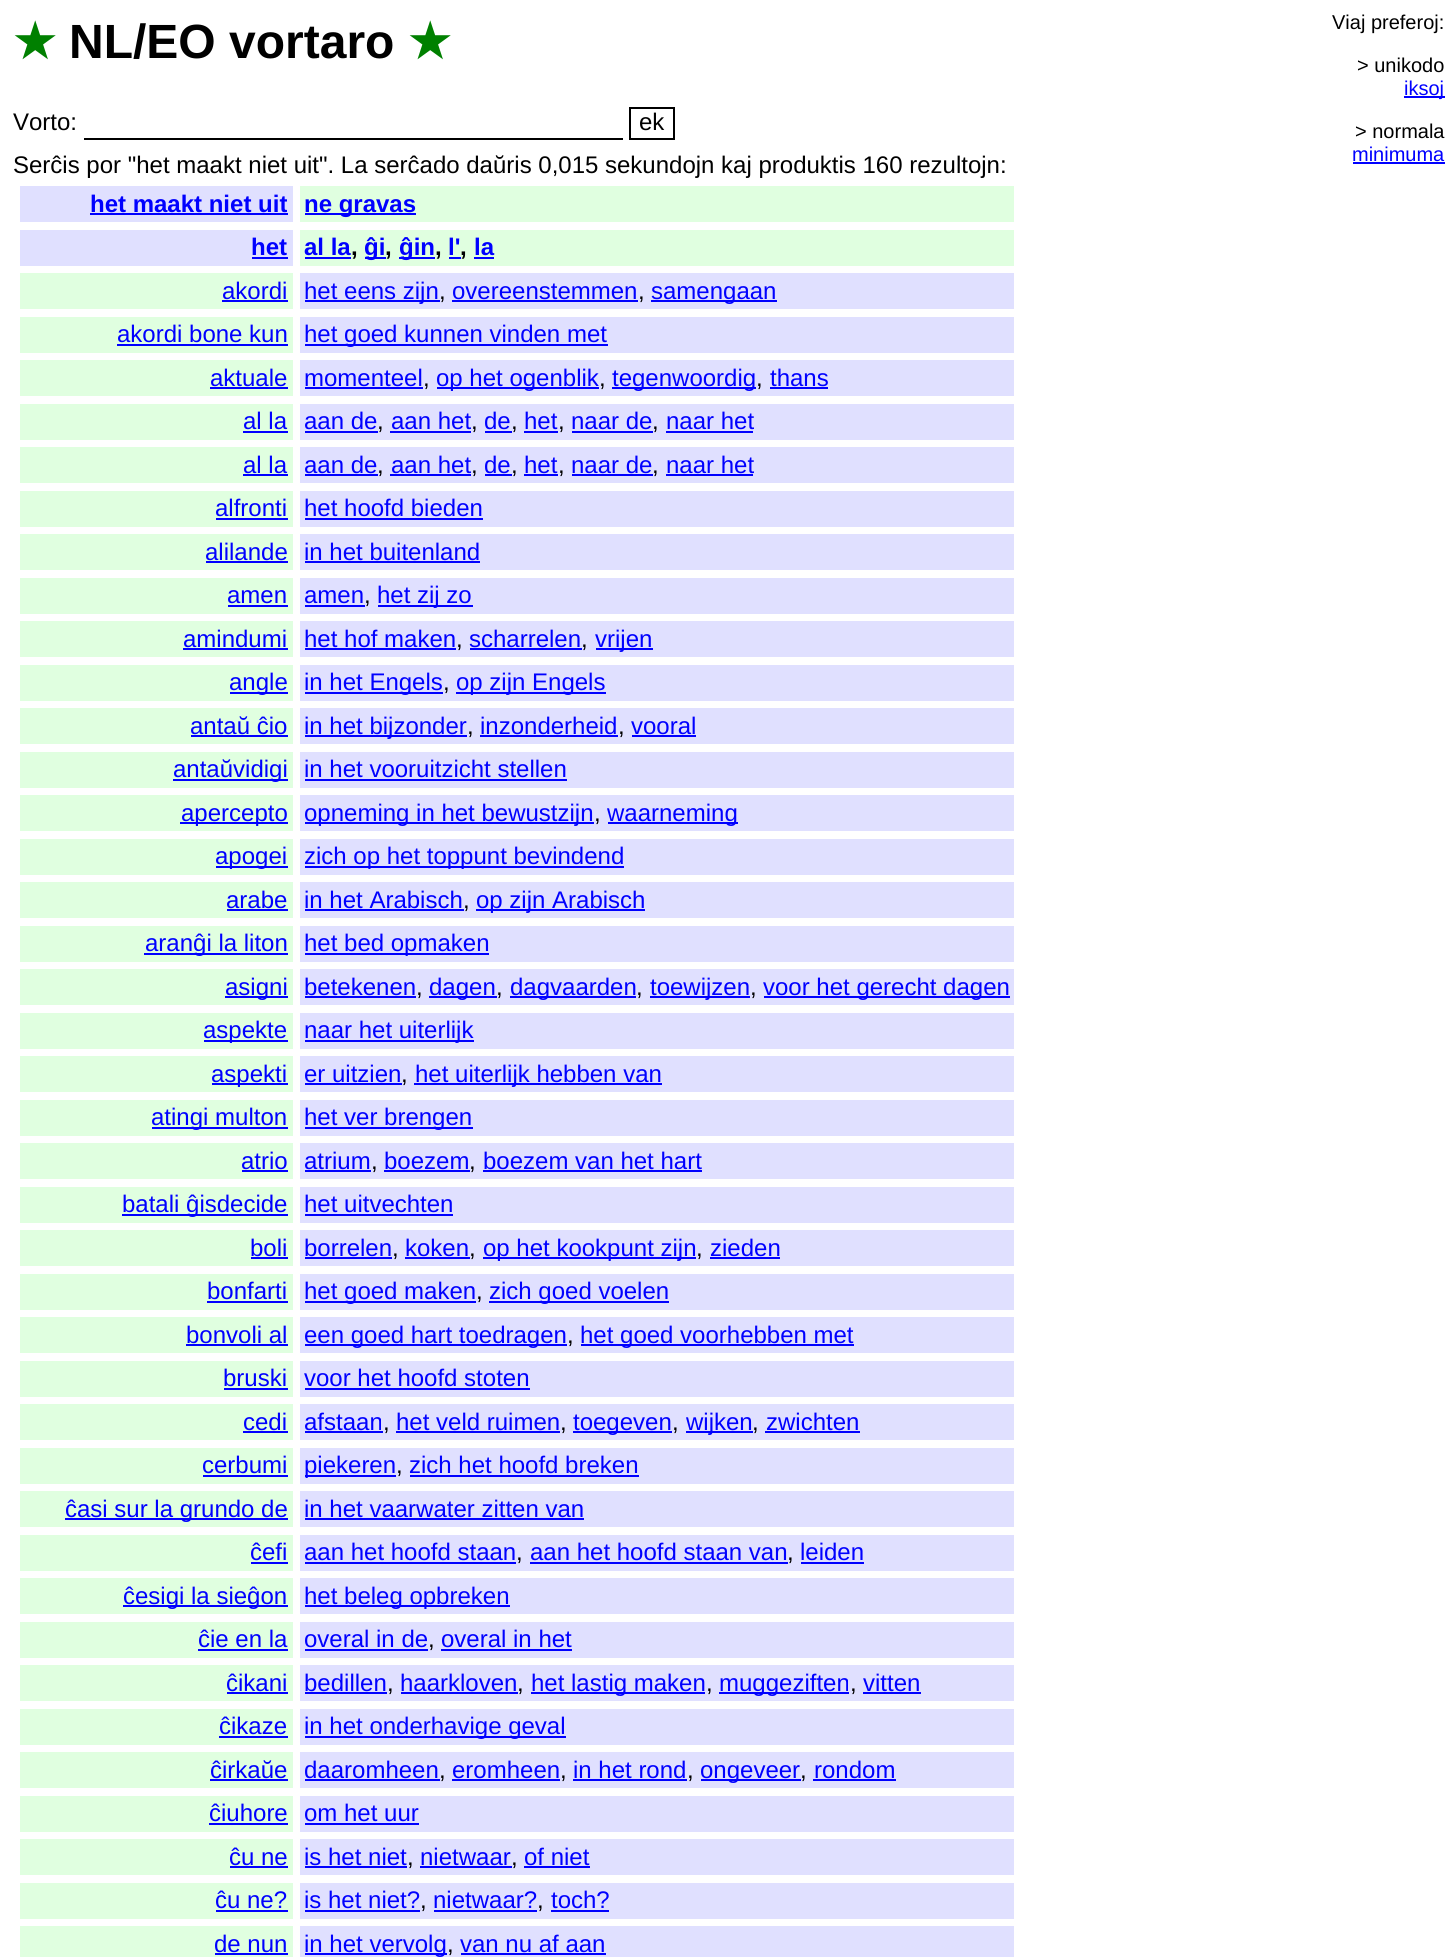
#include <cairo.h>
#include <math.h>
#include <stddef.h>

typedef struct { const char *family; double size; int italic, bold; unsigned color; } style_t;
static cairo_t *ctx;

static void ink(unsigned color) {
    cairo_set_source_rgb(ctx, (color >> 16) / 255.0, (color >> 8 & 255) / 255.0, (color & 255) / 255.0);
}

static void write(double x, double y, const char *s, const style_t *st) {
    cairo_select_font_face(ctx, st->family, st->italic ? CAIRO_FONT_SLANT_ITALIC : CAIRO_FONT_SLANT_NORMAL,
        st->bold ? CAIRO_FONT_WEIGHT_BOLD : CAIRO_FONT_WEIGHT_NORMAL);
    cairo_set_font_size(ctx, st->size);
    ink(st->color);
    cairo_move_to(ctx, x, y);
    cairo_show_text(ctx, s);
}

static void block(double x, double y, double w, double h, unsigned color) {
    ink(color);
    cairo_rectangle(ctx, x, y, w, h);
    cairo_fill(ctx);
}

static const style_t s1 = {"DejaVu Sans", 48, 0, 1, 0x008000};
static const style_t s2 = {"Liberation Sans", 48, 0, 1, 0x000000};
static const style_t s3 = {"Liberation Sans", 20, 0, 0, 0x000000};
static const style_t s4 = {"Liberation Sans", 20, 0, 0, 0x0000ff};
static const style_t s5 = {"Liberation Sans", 24, 0, 0, 0x000000};
static const style_t s6 = {"Liberation Sans", 24, 0, 1, 0x0000ff};
static const style_t s7 = {"Liberation Sans", 24, 0, 1, 0x000000};
static const style_t s8 = {"Liberation Sans", 24, 0, 0, 0x0000ff};

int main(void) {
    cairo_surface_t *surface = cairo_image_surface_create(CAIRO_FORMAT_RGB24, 1454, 1957);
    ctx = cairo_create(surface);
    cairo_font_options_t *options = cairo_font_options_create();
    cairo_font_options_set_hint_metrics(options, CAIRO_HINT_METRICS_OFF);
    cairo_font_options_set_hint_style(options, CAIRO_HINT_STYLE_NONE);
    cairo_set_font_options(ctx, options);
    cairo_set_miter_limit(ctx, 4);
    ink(0xffffff);
    cairo_paint(ctx);
    write(13, 58, "★", &s1);
    write(69, 58, "NL/EO vortaro", &s2);
    write(408, 58, "★", &s1);
    write(1332, 29, "Viaj preferoj:", &s3);
    write(1357, 72, "> unikodo", &s3);
    block(1404, 96, 41, 2, 0x0000ff);
    write(1404, 95, "iksoj", &s4);
    write(1355, 138, "> normala", &s3);
    write(1352, 161, "minimuma", &s4);
    block(1353, 162, 92, 2, 0x0000ff);
    write(13, 130, "Vorto:", &s5);
    cairo_rectangle(ctx, 630, 108, 44, 31);
    cairo_stroke(ctx);
    write(639, 130, "ek", &s5);
    block(84, 138, 539, 2, 0x000000);
    write(13, 173, "Serĉis por \"het maakt niet uit\". La serĉado daŭris 0,015 sekundojn kaj produktis 160 rezultojn:", &s5);
    block(20, 186, 273, 36, 0xe0e0ff);
    write(90, 212, "het maakt niet uit", &s6);
    block(90, 213, 198, 2, 0x0000ff);
    block(300, 186, 714, 36, 0xe0ffe0);
    block(305, 213, 111, 2, 0x0000ff);
    write(304, 212, "ne gravas", &s6);
    block(20, 230, 273, 36, 0xe0e0ff);
    write(251, 255, "het", &s6);
    block(252, 257, 36, 2, 0x0000ff);
    block(300, 230, 714, 36, 0xe0ffe0);
    write(304, 255, "al la", &s6);
    block(305, 257, 46, 2, 0x0000ff);
    write(351, 255, ",", &s7);
    block(365, 257, 21, 2, 0x0000ff);
    write(364, 255, "ĝi", &s6);
    write(385, 255, ",", &s7);
    block(399, 257, 36, 2, 0x0000ff);
    write(399, 255, "ĝin", &s6);
    write(435, 255, ",", &s7);
    write(448, 255, "l'", &s6);
    block(449, 257, 12, 2, 0x0000ff);
    write(460, 255, ",", &s7);
    write(474, 255, "la", &s6);
    block(474, 257, 20, 2, 0x0000ff);
    block(20, 273, 273, 36, 0xe0ffe0);
    write(222, 299, "akordi", &s8);
    block(222, 300, 66, 2, 0x0000ff);
    block(300, 273, 714, 36, 0xe0e0ff);
    block(305, 300, 135, 2, 0x0000ff);
    write(304, 299, "het eens zijn", &s8);
    write(439, 299, ",", &s5);
    write(452, 299, "overeenstemmen", &s8);
    block(452, 300, 186, 2, 0x0000ff);
    write(638, 299, ",", &s5);
    block(651, 300, 126, 2, 0x0000ff);
    write(651, 299, "samengaan", &s8);
    block(20, 317, 273, 36, 0xe0ffe0);
    write(117, 342, "akordi bone kun", &s8);
    block(117, 344, 171, 2, 0x0000ff);
    block(300, 317, 714, 36, 0xe0e0ff);
    block(305, 344, 303, 2, 0x0000ff);
    write(304, 342, "het goed kunnen vinden met", &s8);
    block(20, 360, 273, 36, 0xe0ffe0);
    write(210, 386, "aktuale", &s8);
    block(210, 387, 78, 2, 0x0000ff);
    block(300, 360, 714, 36, 0xe0e0ff);
    write(304, 386, "momenteel", &s8);
    block(305, 387, 118, 2, 0x0000ff);
    write(423, 386, ",", &s5);
    block(437, 387, 162, 2, 0x0000ff);
    write(436, 386, "op het ogenblik", &s8);
    write(599, 386, ",", &s5);
    block(612, 387, 144, 2, 0x0000ff);
    write(612, 386, "tegenwoordig", &s8);
    write(756, 386, ",", &s5);
    write(770, 386, "thans", &s8);
    block(770, 387, 58, 2, 0x0000ff);
    block(20, 404, 273, 36, 0xe0ffe0);
    write(243, 429, "al la", &s8);
    block(243, 431, 45, 2, 0x0000ff);
    block(300, 404, 714, 36, 0xe0e0ff);
    write(304, 429, "aan de", &s8);
    block(305, 431, 73, 2, 0x0000ff);
    write(377, 429, ",", &s5);
    write(391, 429, "aan het", &s8);
    block(390, 431, 81, 2, 0x0000ff);
    write(471, 429, ",", &s5);
    write(484, 429, "de", &s8);
    block(485, 431, 27, 2, 0x0000ff);
    write(511, 429, ",", &s5);
    write(524, 429, "het", &s8);
    block(524, 431, 34, 2, 0x0000ff);
    write(558, 429, ",", &s5);
    write(571, 429, "naar de", &s8);
    block(572, 431, 81, 2, 0x0000ff);
    write(652, 429, ",", &s5);
    write(666, 429, "naar het", &s8);
    block(666, 431, 87, 2, 0x0000ff);
    block(20, 447, 273, 36, 0xe0ffe0);
    write(243, 473, "al la", &s8);
    block(243, 474, 45, 2, 0x0000ff);
    block(300, 447, 714, 36, 0xe0e0ff);
    write(304, 473, "aan de", &s8);
    block(305, 474, 73, 2, 0x0000ff);
    write(377, 473, ",", &s5);
    write(391, 473, "aan het", &s8);
    block(390, 474, 81, 2, 0x0000ff);
    write(471, 473, ",", &s5);
    write(484, 473, "de", &s8);
    block(485, 474, 27, 2, 0x0000ff);
    write(511, 473, ",", &s5);
    write(524, 473, "het", &s8);
    block(524, 474, 34, 2, 0x0000ff);
    write(558, 473, ",", &s5);
    write(571, 473, "naar de", &s8);
    block(572, 474, 81, 2, 0x0000ff);
    write(652, 473, ",", &s5);
    write(666, 473, "naar het", &s8);
    block(666, 474, 87, 2, 0x0000ff);
    block(20, 491, 273, 36, 0xe0ffe0);
    write(215, 516, "alfronti", &s8);
    block(216, 518, 72, 2, 0x0000ff);
    block(300, 491, 714, 36, 0xe0e0ff);
    write(304, 516, "het hoofd bieden", &s8);
    block(305, 518, 178, 2, 0x0000ff);
    block(20, 534, 273, 36, 0xe0ffe0);
    write(205, 560, "alilande", &s8);
    block(206, 561, 82, 2, 0x0000ff);
    block(300, 534, 714, 36, 0xe0e0ff);
    write(304, 560, "in het buitenland", &s8);
    block(305, 561, 175, 2, 0x0000ff);
    block(20, 578, 273, 36, 0xe0ffe0);
    write(227, 603, "amen", &s8);
    block(228, 605, 60, 2, 0x0000ff);
    block(300, 578, 714, 36, 0xe0e0ff);
    write(304, 603, "amen", &s8);
    block(305, 605, 60, 2, 0x0000ff);
    write(364, 603, ",", &s5);
    block(378, 605, 95, 2, 0x0000ff);
    write(377, 603, "het zij zo", &s8);
    block(20, 621, 273, 36, 0xe0ffe0);
    write(183, 647, "amindumi", &s8);
    block(183, 648, 105, 2, 0x0000ff);
    block(300, 621, 714, 36, 0xe0e0ff);
    write(304, 647, "het hof maken", &s8);
    block(305, 648, 151, 2, 0x0000ff);
    write(456, 647, ",", &s5);
    write(469, 647, "scharrelen", &s8);
    block(470, 648, 112, 2, 0x0000ff);
    write(581, 647, ",", &s5);
    block(596, 648, 57, 2, 0x0000ff);
    write(595, 647, "vrijen", &s8);
    block(20, 665, 273, 36, 0xe0ffe0);
    block(230, 692, 58, 2, 0x0000ff);
    write(229, 690, "angle", &s8);
    block(300, 665, 714, 36, 0xe0e0ff);
    block(305, 692, 138, 2, 0x0000ff);
    write(304, 690, "in het Engels", &s8);
    write(443, 690, ",", &s5);
    block(456, 692, 150, 2, 0x0000ff);
    write(456, 690, "op zijn Engels", &s8);
    block(20, 708, 273, 36, 0xe0ffe0);
    write(190, 734, "antaŭ ĉio", &s8);
    block(191, 735, 97, 2, 0x0000ff);
    block(300, 708, 714, 36, 0xe0e0ff);
    block(305, 735, 162, 2, 0x0000ff);
    write(304, 734, "in het bijzonder", &s8);
    write(467, 734, ",", &s5);
    write(480, 734, "inzonderheid", &s8);
    block(480, 735, 138, 2, 0x0000ff);
    write(618, 734, ",", &s5);
    write(631, 734, "vooral", &s8);
    block(632, 735, 64, 2, 0x0000ff);
    block(20, 752, 273, 36, 0xe0ffe0);
    block(173, 779, 115, 2, 0x0000ff);
    write(173, 777, "antaŭvidigi", &s8);
    block(300, 752, 714, 36, 0xe0e0ff);
    write(304, 777, "in het vooruitzicht stellen", &s8);
    block(305, 779, 262, 2, 0x0000ff);
    block(20, 795, 273, 36, 0xe0ffe0);
    block(180, 822, 108, 2, 0x0000ff);
    write(181, 821, "apercepto", &s8);
    block(300, 795, 714, 36, 0xe0e0ff);
    block(305, 822, 289, 2, 0x0000ff);
    write(304, 821, "opneming in het bewustzijn", &s8);
    write(594, 821, ",", &s5);
    block(608, 822, 130, 2, 0x0000ff);
    write(607, 821, "waarneming", &s8);
    block(20, 839, 273, 36, 0xe0ffe0);
    block(216, 866, 72, 2, 0x0000ff);
    write(215, 864, "apogei", &s8);
    block(300, 839, 714, 36, 0xe0e0ff);
    block(305, 866, 319, 2, 0x0000ff);
    write(304, 864, "zich op het toppunt bevindend", &s8);
    block(20, 882, 273, 36, 0xe0ffe0);
    write(226, 908, "arabe", &s8);
    block(227, 909, 61, 2, 0x0000ff);
    block(300, 882, 714, 36, 0xe0e0ff);
    write(304, 908, "in het Arabisch", &s8);
    block(305, 909, 159, 2, 0x0000ff);
    write(463, 908, ",", &s5);
    block(476, 909, 169, 2, 0x0000ff);
    write(476, 908, "op zijn Arabisch", &s8);
    block(20, 926, 273, 36, 0xe0ffe0);
    block(144, 953, 144, 2, 0x0000ff);
    write(145, 951, "aranĝi la liton", &s8);
    block(300, 926, 714, 36, 0xe0e0ff);
    block(305, 953, 184, 2, 0x0000ff);
    write(304, 951, "het bed opmaken", &s8);
    block(20, 969, 273, 36, 0xe0ffe0);
    block(225, 996, 63, 2, 0x0000ff);
    write(225, 995, "asigni", &s8);
    block(300, 969, 714, 36, 0xe0e0ff);
    write(304, 995, "betekenen", &s8);
    block(305, 996, 111, 2, 0x0000ff);
    write(416, 995, ",", &s5);
    block(429, 996, 68, 2, 0x0000ff);
    write(429, 995, "dagen", &s8);
    write(496, 995, ",", &s5);
    block(510, 996, 126, 2, 0x0000ff);
    write(510, 995, "dagvaarden", &s8);
    write(636, 995, ",", &s5);
    block(650, 996, 100, 2, 0x0000ff);
    write(650, 995, "toewijzen", &s8);
    write(750, 995, ",", &s5);
    block(764, 996, 246, 2, 0x0000ff);
    write(763, 995, "voor het gerecht dagen", &s8);
    block(20, 1013, 273, 36, 0xe0ffe0);
    block(204, 1040, 84, 2, 0x0000ff);
    write(203, 1038, "aspekte", &s8);
    block(300, 1013, 714, 36, 0xe0e0ff);
    block(305, 1040, 169, 2, 0x0000ff);
    write(304, 1038, "naar het uiterlijk", &s8);
    block(20, 1056, 273, 36, 0xe0ffe0);
    block(212, 1083, 76, 2, 0x0000ff);
    write(211, 1082, "aspekti", &s8);
    block(300, 1056, 714, 36, 0xe0e0ff);
    write(304, 1082, "er uitzien", &s8);
    block(305, 1083, 97, 2, 0x0000ff);
    write(401, 1082, ",", &s5);
    block(414, 1083, 248, 2, 0x0000ff);
    write(415, 1082, "het uiterlijk hebben van", &s8);
    block(20, 1100, 273, 36, 0xe0ffe0);
    block(152, 1127, 136, 2, 0x0000ff);
    write(151, 1125, "atingi multon", &s8);
    block(300, 1100, 714, 36, 0xe0e0ff);
    block(305, 1127, 168, 2, 0x0000ff);
    write(304, 1125, "het ver brengen", &s8);
    block(20, 1143, 273, 36, 0xe0ffe0);
    write(241, 1169, "atrio", &s8);
    block(242, 1170, 46, 2, 0x0000ff);
    block(300, 1143, 714, 36, 0xe0e0ff);
    write(304, 1169, "atrium", &s8);
    block(305, 1170, 66, 2, 0x0000ff);
    write(371, 1169, ",", &s5);
    write(384, 1169, "boezem", &s8);
    block(384, 1170, 86, 2, 0x0000ff);
    write(469, 1169, ",", &s5);
    write(483, 1169, "boezem van het hart", &s8);
    block(483, 1170, 219, 2, 0x0000ff);
    block(20, 1187, 273, 36, 0xe0ffe0);
    block(122, 1214, 166, 2, 0x0000ff);
    write(122, 1212, "batali ĝisdecide", &s8);
    block(300, 1187, 714, 36, 0xe0e0ff);
    write(304, 1212, "het uitvechten", &s8);
    block(305, 1214, 148, 2, 0x0000ff);
    block(20, 1230, 273, 36, 0xe0ffe0);
    write(250, 1256, "boli", &s8);
    block(251, 1257, 37, 2, 0x0000ff);
    block(300, 1230, 714, 36, 0xe0e0ff);
    write(304, 1256, "borrelen", &s8);
    block(305, 1257, 87, 2, 0x0000ff);
    write(392, 1256, ",", &s5);
    write(405, 1256, "koken", &s8);
    block(405, 1257, 65, 2, 0x0000ff);
    write(469, 1256, ",", &s5);
    block(483, 1257, 213, 2, 0x0000ff);
    write(483, 1256, "op het kookpunt zijn", &s8);
    write(696, 1256, ",", &s5);
    write(710, 1256, "zieden", &s8);
    block(710, 1257, 70, 2, 0x0000ff);
    block(20, 1274, 273, 36, 0xe0ffe0);
    write(207, 1299, "bonfarti", &s8);
    block(207, 1301, 81, 2, 0x0000ff);
    block(300, 1274, 714, 36, 0xe0e0ff);
    block(305, 1301, 171, 2, 0x0000ff);
    write(304, 1299, "het goed maken", &s8);
    write(476, 1299, ",", &s5);
    block(489, 1301, 180, 2, 0x0000ff);
    write(489, 1299, "zich goed voelen", &s8);
    block(20, 1317, 273, 36, 0xe0ffe0);
    write(186, 1343, "bonvoli al", &s8);
    block(186, 1344, 102, 2, 0x0000ff);
    block(300, 1317, 714, 36, 0xe0e0ff);
    block(305, 1344, 262, 2, 0x0000ff);
    write(304, 1343, "een goed hart toedragen", &s8);
    write(567, 1343, ",", &s5);
    block(581, 1344, 273, 2, 0x0000ff);
    write(580, 1343, "het goed voorhebben met", &s8);
    block(20, 1361, 273, 36, 0xe0ffe0);
    write(223, 1386, "bruski", &s8);
    block(224, 1388, 64, 2, 0x0000ff);
    block(300, 1361, 714, 36, 0xe0e0ff);
    write(304, 1386, "voor het hoofd stoten", &s8);
    block(305, 1388, 225, 2, 0x0000ff);
    block(20, 1404, 273, 36, 0xe0ffe0);
    write(243, 1430, "cedi", &s8);
    block(243, 1431, 45, 2, 0x0000ff);
    block(300, 1404, 714, 36, 0xe0e0ff);
    write(304, 1430, "afstaan", &s8);
    block(305, 1431, 78, 2, 0x0000ff);
    write(383, 1430, ",", &s5);
    write(396, 1430, "het veld ruimen", &s8);
    block(396, 1431, 164, 2, 0x0000ff);
    write(560, 1430, ",", &s5);
    block(573, 1431, 99, 2, 0x0000ff);
    write(573, 1430, "toegeven", &s8);
    write(672, 1430, ",", &s5);
    block(686, 1431, 67, 2, 0x0000ff);
    write(686, 1430, "wijken", &s8);
    write(752, 1430, ",", &s5);
    write(766, 1430, "zwichten", &s8);
    block(765, 1431, 95, 2, 0x0000ff);
    block(20, 1448, 273, 36, 0xe0ffe0);
    write(202, 1473, "cerbumi", &s8);
    block(203, 1475, 85, 2, 0x0000ff);
    block(300, 1448, 714, 36, 0xe0e0ff);
    block(305, 1475, 91, 2, 0x0000ff);
    write(304, 1473, "piekeren", &s8);
    write(396, 1473, ",", &s5);
    write(409, 1473, "zich het hoofd breken", &s8);
    block(410, 1475, 229, 2, 0x0000ff);
    block(20, 1491, 273, 36, 0xe0ffe0);
    block(65, 1518, 223, 2, 0x0000ff);
    write(65, 1517, "ĉasi sur la grundo de", &s8);
    block(300, 1491, 714, 36, 0xe0e0ff);
    write(304, 1517, "in het vaarwater zitten van", &s8);
    block(305, 1518, 279, 2, 0x0000ff);
    block(20, 1535, 273, 36, 0xe0ffe0);
    write(250, 1560, "ĉefi", &s8);
    block(251, 1562, 37, 2, 0x0000ff);
    block(300, 1535, 714, 36, 0xe0e0ff);
    write(304, 1560, "aan het hoofd staan", &s8);
    block(305, 1562, 211, 2, 0x0000ff);
    write(516, 1560, ",", &s5);
    write(530, 1560, "aan het hoofd staan van", &s8);
    block(530, 1562, 258, 2, 0x0000ff);
    write(787, 1560, ",", &s5);
    write(800, 1560, "leiden", &s8);
    block(801, 1562, 63, 2, 0x0000ff);
    block(20, 1578, 273, 36, 0xe0ffe0);
    block(123, 1605, 165, 2, 0x0000ff);
    write(123, 1604, "ĉesigi la sieĝon", &s8);
    block(300, 1578, 714, 36, 0xe0e0ff);
    block(305, 1605, 205, 2, 0x0000ff);
    write(304, 1604, "het beleg opbreken", &s8);
    block(20, 1622, 273, 36, 0xe0ffe0);
    write(198, 1647, "ĉie en la", &s8);
    block(198, 1649, 90, 2, 0x0000ff);
    block(300, 1622, 714, 36, 0xe0e0ff);
    write(304, 1647, "overal in de", &s8);
    block(305, 1649, 123, 2, 0x0000ff);
    write(428, 1647, ",", &s5);
    write(441, 1647, "overal in het", &s8);
    block(441, 1649, 131, 2, 0x0000ff);
    block(20, 1665, 273, 36, 0xe0ffe0);
    write(226, 1691, "ĉikani", &s8);
    block(227, 1692, 61, 2, 0x0000ff);
    block(300, 1665, 714, 36, 0xe0e0ff);
    write(304, 1691, "bedillen", &s8);
    block(305, 1692, 82, 2, 0x0000ff);
    write(387, 1691, ",", &s5);
    write(400, 1691, "haarkloven", &s8);
    block(401, 1692, 117, 2, 0x0000ff);
    write(517, 1691, ",", &s5);
    block(531, 1692, 174, 2, 0x0000ff);
    write(531, 1691, "het lastig maken", &s8);
    write(706, 1691, ",", &s5);
    block(719, 1692, 130, 2, 0x0000ff);
    write(719, 1691, "muggeziften", &s8);
    write(850, 1691, ",", &s5);
    write(863, 1691, "vitten", &s8);
    block(863, 1692, 58, 2, 0x0000ff);
    block(20, 1709, 273, 36, 0xe0ffe0);
    write(219, 1734, "ĉikaze", &s8);
    block(219, 1736, 69, 2, 0x0000ff);
    block(300, 1709, 714, 36, 0xe0e0ff);
    block(305, 1736, 261, 2, 0x0000ff);
    write(304, 1734, "in het onderhavige geval", &s8);
    block(20, 1752, 273, 36, 0xe0ffe0);
    write(210, 1778, "ĉirkaŭe", &s8);
    block(210, 1779, 78, 2, 0x0000ff);
    block(300, 1752, 714, 36, 0xe0e0ff);
    write(304, 1778, "daaromheen", &s8);
    block(305, 1779, 135, 2, 0x0000ff);
    write(439, 1778, ",", &s5);
    write(452, 1778, "eromheen", &s8);
    block(452, 1779, 108, 2, 0x0000ff);
    write(560, 1778, ",", &s5);
    write(573, 1778, "in het rond", &s8);
    block(573, 1779, 114, 2, 0x0000ff);
    write(687, 1778, ",", &s5);
    block(701, 1779, 100, 2, 0x0000ff);
    write(700, 1778, "ongeveer", &s8);
    write(800, 1778, ",", &s5);
    write(814, 1778, "rondom", &s8);
    block(813, 1779, 83, 2, 0x0000ff);
    block(20, 1796, 273, 36, 0xe0ffe0);
    write(209, 1821, "ĉiuhore", &s8);
    block(209, 1823, 79, 2, 0x0000ff);
    block(300, 1796, 714, 36, 0xe0e0ff);
    write(304, 1821, "om het uur", &s8);
    block(305, 1823, 114, 2, 0x0000ff);
    block(20, 1839, 273, 36, 0xe0ffe0);
    write(229, 1865, "ĉu ne", &s8);
    block(230, 1866, 58, 2, 0x0000ff);
    block(300, 1839, 714, 36, 0xe0e0ff);
    write(304, 1865, "is het niet", &s8);
    block(305, 1866, 102, 2, 0x0000ff);
    write(407, 1865, ",", &s5);
    write(420, 1865, "nietwaar", &s8);
    block(420, 1866, 92, 2, 0x0000ff);
    write(511, 1865, ",", &s5);
    write(524, 1865, "of niet", &s8);
    block(524, 1866, 66, 2, 0x0000ff);
    block(20, 1883, 273, 36, 0xe0ffe0);
    write(215, 1908, "ĉu ne?", &s8);
    block(216, 1910, 72, 2, 0x0000ff);
    block(300, 1883, 714, 36, 0xe0e0ff);
    write(304, 1908, "is het niet?", &s8);
    block(305, 1910, 115, 2, 0x0000ff);
    write(420, 1908, ",", &s5);
    write(433, 1908, "nietwaar?", &s8);
    block(434, 1910, 103, 2, 0x0000ff);
    write(537, 1908, ",", &s5);
    write(551, 1908, "toch?", &s8);
    block(551, 1910, 58, 2, 0x0000ff);
    block(20, 1926, 273, 31, 0xe0ffe0);
    write(214, 1952, "de nun", &s8);
    block(215, 1953, 73, 2, 0x0000ff);
    block(300, 1926, 714, 31, 0xe0e0ff);
    block(305, 1953, 142, 2, 0x0000ff);
    write(304, 1952, "in het vervolg", &s8);
    write(447, 1952, ",", &s5);
    write(460, 1952, "van nu af aan", &s8);
    block(461, 1953, 145, 2, 0x0000ff);
    cairo_surface_write_to_png(surface, "screenshot.png");
    cairo_font_options_destroy(options);
    cairo_destroy(ctx);
    cairo_surface_destroy(surface);
    return 0;
}
